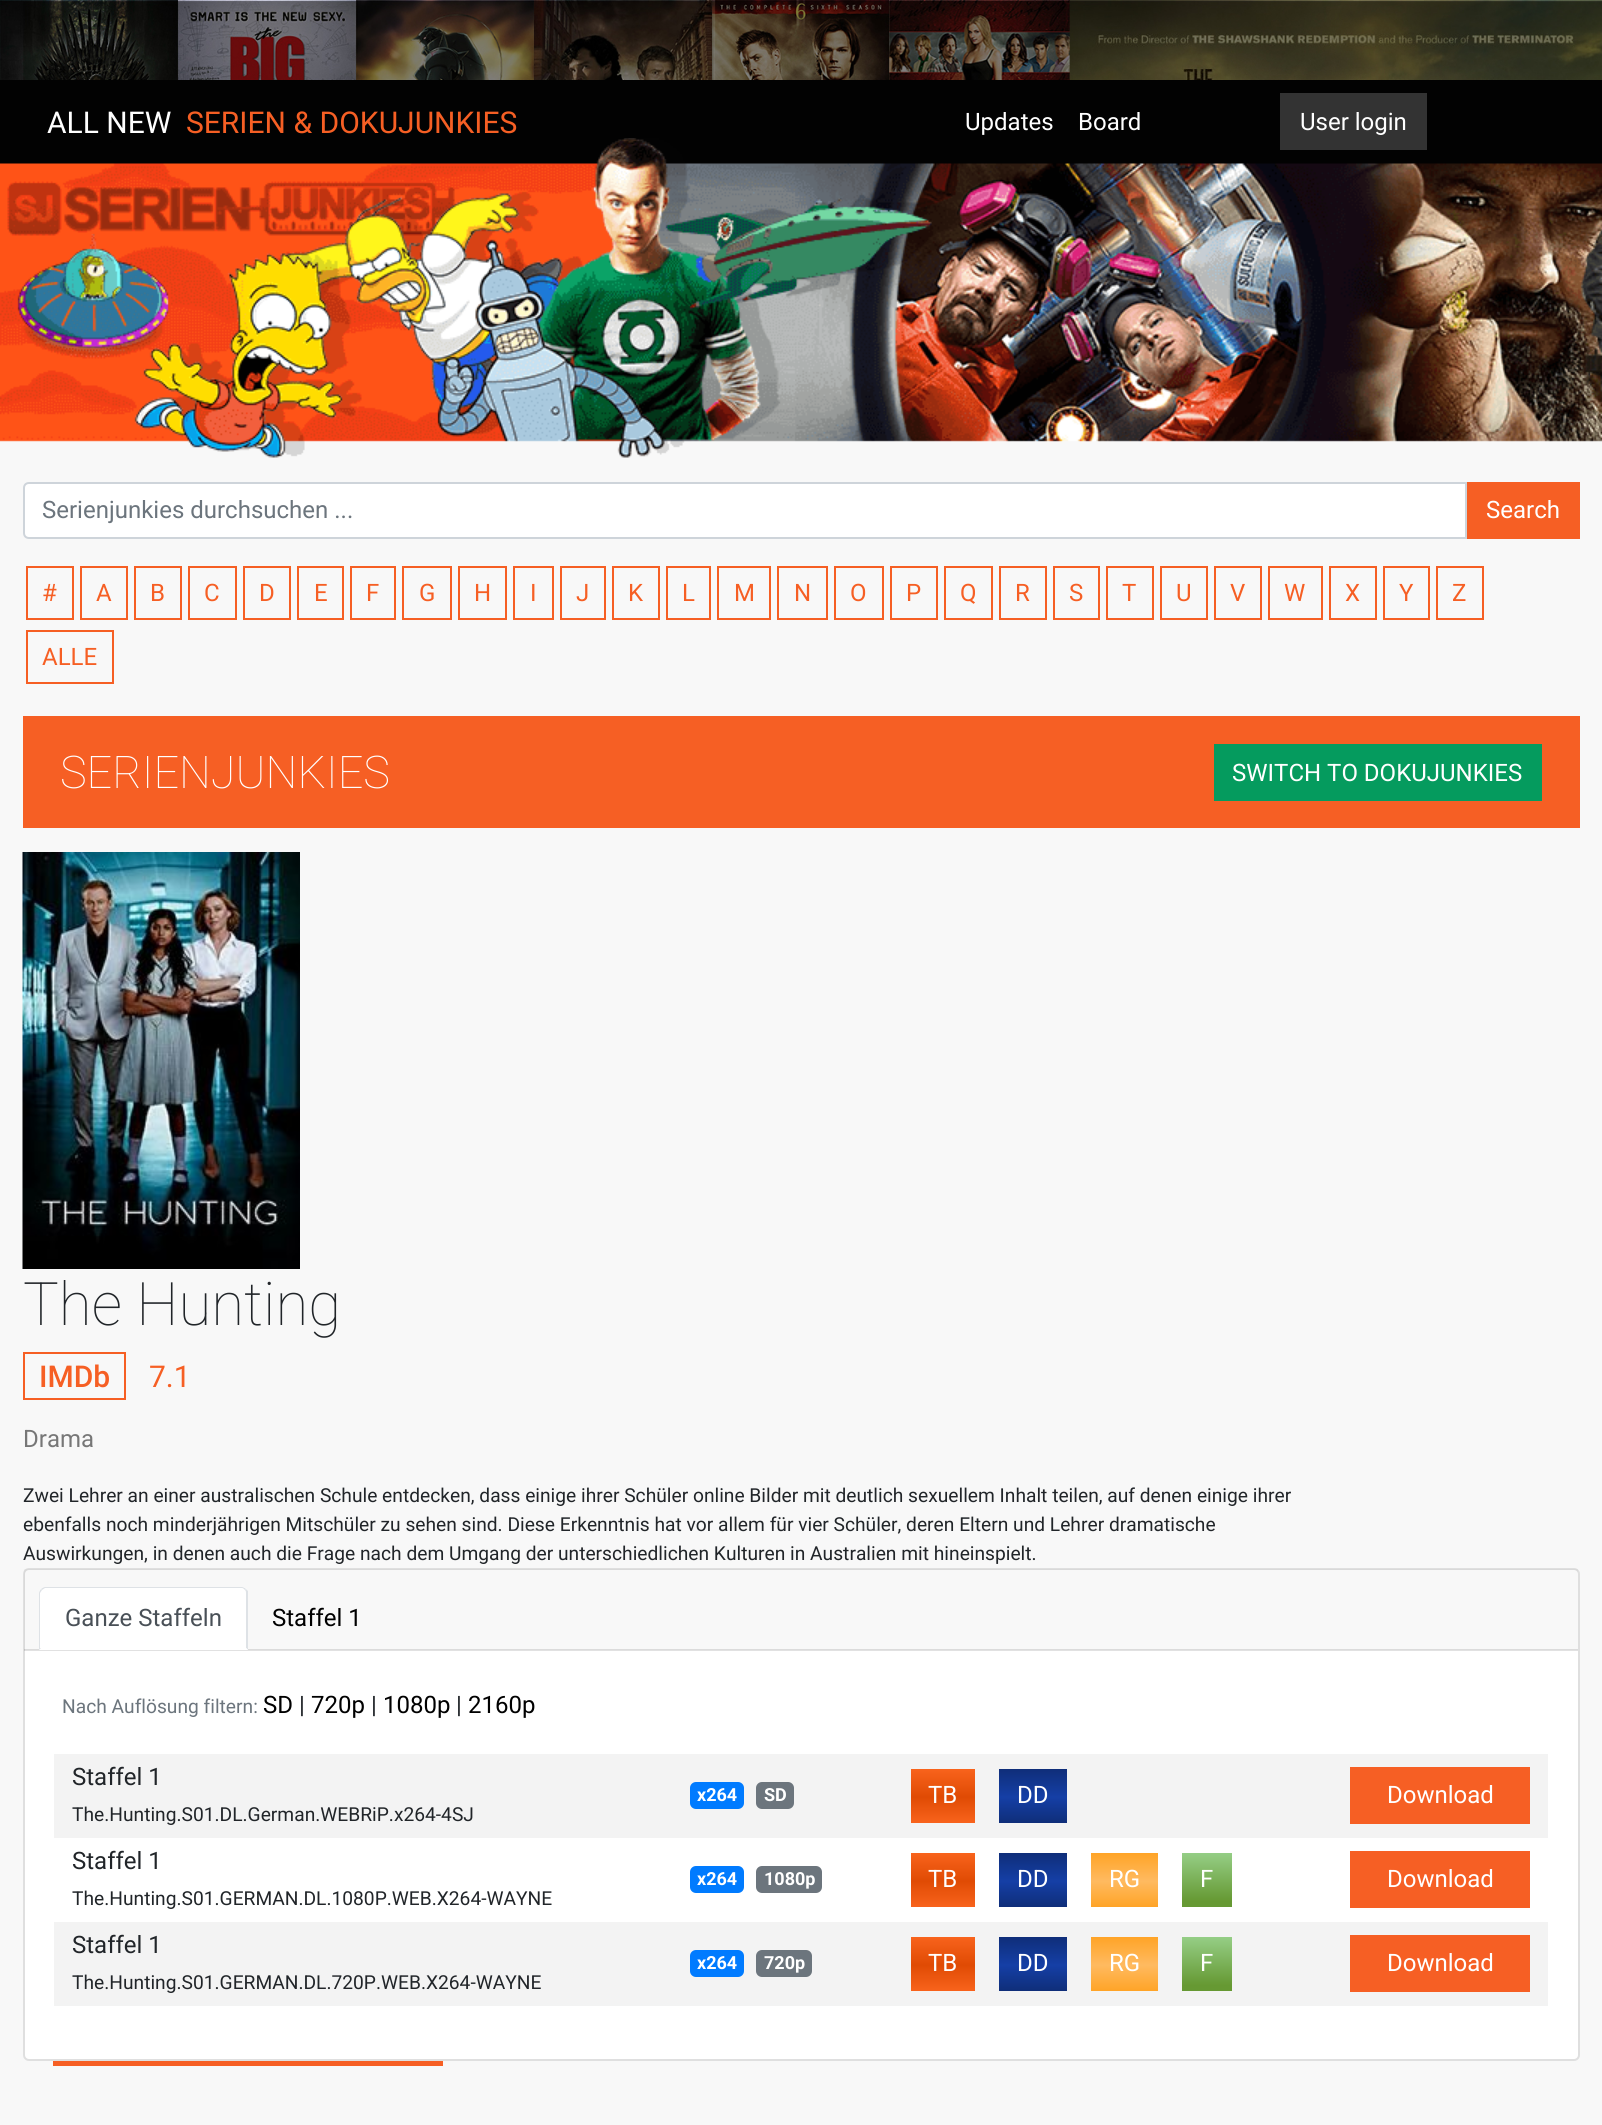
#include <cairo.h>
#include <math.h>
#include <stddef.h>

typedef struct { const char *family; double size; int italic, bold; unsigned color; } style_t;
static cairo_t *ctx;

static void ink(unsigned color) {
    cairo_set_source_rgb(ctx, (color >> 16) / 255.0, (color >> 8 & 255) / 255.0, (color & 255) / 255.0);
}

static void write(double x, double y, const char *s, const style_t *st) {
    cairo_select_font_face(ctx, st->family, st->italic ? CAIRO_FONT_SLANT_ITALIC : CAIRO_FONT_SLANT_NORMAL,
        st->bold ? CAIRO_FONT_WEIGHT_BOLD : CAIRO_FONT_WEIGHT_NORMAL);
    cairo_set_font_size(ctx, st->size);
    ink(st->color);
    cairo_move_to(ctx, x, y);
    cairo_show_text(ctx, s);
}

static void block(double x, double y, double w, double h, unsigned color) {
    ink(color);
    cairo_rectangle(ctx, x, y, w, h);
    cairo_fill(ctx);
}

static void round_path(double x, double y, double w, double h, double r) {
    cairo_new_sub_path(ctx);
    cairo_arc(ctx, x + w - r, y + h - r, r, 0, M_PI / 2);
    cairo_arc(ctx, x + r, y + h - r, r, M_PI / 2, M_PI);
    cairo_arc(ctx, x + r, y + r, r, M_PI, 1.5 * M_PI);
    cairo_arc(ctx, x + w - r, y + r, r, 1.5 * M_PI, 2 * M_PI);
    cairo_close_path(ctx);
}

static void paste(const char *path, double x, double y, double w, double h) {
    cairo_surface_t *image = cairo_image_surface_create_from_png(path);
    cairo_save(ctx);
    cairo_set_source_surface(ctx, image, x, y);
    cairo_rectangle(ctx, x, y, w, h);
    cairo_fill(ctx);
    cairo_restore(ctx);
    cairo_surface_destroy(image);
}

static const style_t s1 = {"Roboto", 30, 0, 0, 0xffffff};
static const style_t s2 = {"Roboto", 30, 0, 0, 0xf65f24};
static const style_t s3 = {"Roboto", 24, 0, 0, 0xffffff};
static const style_t s4 = {"Roboto", 24, 0, 0, 0x6c757d};
static const style_t s5 = {"Roboto", 24, 0, 0, 0xf65f24};
static const style_t s6 = {"Roboto Thin", 45, 0, 0, 0xffffff};
static const style_t s7 = {"Roboto Thin", 60, 0, 0, 0x212529};
static const style_t s8 = {"Roboto Medium", 30, 0, 0, 0xf65f24};
static const style_t s9 = {"Roboto", 24, 0, 0, 0x777777};
static const style_t s10 = {"Roboto", 19.2, 0, 0, 0x212529};
static const style_t s11 = {"Roboto", 24, 0, 0, 0x495057};
static const style_t s12 = {"Roboto", 24, 0, 0, 0x000000};
static const style_t s13 = {"Roboto", 19.2, 0, 0, 0x6c757d};
static const style_t s14 = {"Roboto", 24, 0, 0, 0x212529};
static const style_t s15 = {"Roboto", 18, 0, 1, 0xffffff};

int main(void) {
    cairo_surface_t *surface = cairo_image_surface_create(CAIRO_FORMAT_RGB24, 1602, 2125);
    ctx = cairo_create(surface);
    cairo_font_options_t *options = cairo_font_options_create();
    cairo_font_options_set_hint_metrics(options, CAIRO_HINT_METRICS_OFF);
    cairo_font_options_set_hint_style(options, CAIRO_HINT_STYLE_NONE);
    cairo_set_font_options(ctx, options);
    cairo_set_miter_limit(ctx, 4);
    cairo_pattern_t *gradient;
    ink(0xffffff);
    cairo_paint(ctx);
    paste("pic1.png", 0, 0, 1602, 80);
    block(0, 440, 1602, 1685, 0xf8f8f8);
    block(0, 80, 1602, 84, 0x020202);
    write(47, 133, "ALL NEW", &s1);
    write(186, 133, "SERIEN & DOKUJUNKIES", &s2);
    write(965, 130, "Updates", &s3);
    write(1078, 130, "Board", &s3);
    block(1280, 93, 147, 57, 0x333333);
    write(1300, 130, "User login", &s3);
    paste("pic2.png", 0, 138, 1602, 320);
    cairo_new_path(ctx);
    cairo_move_to(ctx, 29, 483);
    cairo_line_to(ctx, 1466, 483);
    cairo_line_to(ctx, 1466, 538);
    cairo_line_to(ctx, 29, 538);
    cairo_curve_to(ctx, 26, 538, 24, 536, 24, 533);
    cairo_line_to(ctx, 24, 488);
    cairo_curve_to(ctx, 24, 485, 26, 483, 29, 483);
    cairo_close_path(ctx);
    cairo_fill_preserve(ctx);
    ink(0xced4da);
    cairo_stroke(ctx);
    write(42, 518, "Serienjunkies durchsuchen ...", &s4);
    block(1467, 482, 113, 57, 0xf65f24);
    write(1486, 518, "Search", &s3);
    cairo_rectangle(ctx, 27, 567, 46, 52);
    ink(0xf65f24);
    cairo_stroke(ctx);
    write(42, 601, "#", &s5);
    cairo_rectangle(ctx, 81, 567, 46, 52);
    cairo_stroke(ctx);
    write(96, 601, "A", &s5);
    cairo_rectangle(ctx, 135, 567, 46, 52);
    cairo_stroke(ctx);
    write(150, 601, "B", &s5);
    cairo_rectangle(ctx, 189, 567, 47, 52);
    cairo_stroke(ctx);
    write(204, 601, "C", &s5);
    cairo_rectangle(ctx, 244, 567, 46, 52);
    cairo_stroke(ctx);
    write(259, 601, "D", &s5);
    cairo_rectangle(ctx, 298, 567, 45, 52);
    cairo_stroke(ctx);
    write(314, 601, "E", &s5);
    cairo_rectangle(ctx, 351, 567, 44, 52);
    cairo_stroke(ctx);
    write(366, 601, "F", &s5);
    cairo_rectangle(ctx, 403, 567, 48, 52);
    cairo_stroke(ctx);
    write(419, 601, "G", &s5);
    cairo_rectangle(ctx, 459, 567, 47, 52);
    cairo_stroke(ctx);
    write(474, 601, "H", &s5);
    cairo_rectangle(ctx, 514, 567, 39, 52);
    cairo_stroke(ctx);
    write(530, 601, "I", &s5);
    cairo_rectangle(ctx, 561, 567, 44, 52);
    cairo_stroke(ctx);
    write(576, 601, "J", &s5);
    cairo_rectangle(ctx, 613, 567, 46, 52);
    cairo_stroke(ctx);
    write(628, 601, "K", &s5);
    cairo_rectangle(ctx, 667, 567, 43, 52);
    cairo_stroke(ctx);
    write(682, 601, "L", &s5);
    cairo_rectangle(ctx, 718, 567, 52, 52);
    cairo_stroke(ctx);
    write(734, 601, "M", &s5);
    cairo_rectangle(ctx, 778, 567, 49, 52);
    cairo_stroke(ctx);
    write(794, 601, "N", &s5);
    cairo_rectangle(ctx, 835, 567, 48, 52);
    cairo_stroke(ctx);
    write(850, 601, "O", &s5);
    cairo_rectangle(ctx, 891, 567, 46, 52);
    cairo_stroke(ctx);
    write(906, 601, "P", &s5);
    cairo_rectangle(ctx, 945, 567, 47, 52);
    cairo_stroke(ctx);
    write(960, 601, "Q", &s5);
    cairo_rectangle(ctx, 1000, 567, 46, 52);
    cairo_stroke(ctx);
    write(1015, 601, "R", &s5);
    cairo_rectangle(ctx, 1054, 567, 45, 52);
    cairo_stroke(ctx);
    write(1069, 601, "S", &s5);
    cairo_rectangle(ctx, 1107, 567, 46, 52);
    cairo_stroke(ctx);
    write(1122, 601, "T", &s5);
    cairo_rectangle(ctx, 1161, 567, 46, 52);
    cairo_stroke(ctx);
    write(1176, 601, "U", &s5);
    cairo_rectangle(ctx, 1215, 567, 46, 52);
    cairo_stroke(ctx);
    write(1230, 601, "V", &s5);
    cairo_rectangle(ctx, 1269, 567, 53, 52);
    cairo_stroke(ctx);
    write(1284, 601, "W", &s5);
    cairo_rectangle(ctx, 1330, 567, 46, 52);
    cairo_stroke(ctx);
    write(1345, 601, "X", &s5);
    cairo_rectangle(ctx, 1384, 567, 45, 52);
    cairo_stroke(ctx);
    write(1399, 601, "Y", &s5);
    cairo_rectangle(ctx, 1437, 567, 46, 52);
    cairo_stroke(ctx);
    write(1452, 601, "Z", &s5);
    cairo_rectangle(ctx, 27, 631, 86, 52);
    cairo_stroke(ctx);
    write(42, 665, "ALLE", &s5);
    block(23, 716, 1557, 112, 0xf65f24);
    write(60, 788, "SERIENJUNKIES", &s6);
    block(1214, 744, 328, 57, 0x059b5e);
    write(1232, 781, "SWITCH TO DOKUJUNKIES", &s3);
    paste("pic3.png", 22, 852, 278, 417);
    write(23, 1325, "The Hunting", &s7);
    cairo_rectangle(ctx, 24, 1353, 101, 46);
    ink(0xf65f24);
    cairo_stroke(ctx);
    write(39, 1387, "IMDb", &s8);
    write(149, 1387, "7.1", &s2);
    write(23, 1447, "Drama", &s9);
    write(23, 1502, "Zwei Lehrer an einer australischen Schule entdecken, dass einige ihrer Schüler online Bilder mit deutlich sexuellem Inhalt teilen, auf denen einige ihrer", &s10);
    write(23, 1531, "ebenfalls noch minderjährigen Mitschüler zu sehen sind. Diese Erkenntnis hat vor allem für vier Schüler, deren Eltern und Lehrer dramatische", &s10);
    write(23, 1560, "Auswirkungen, in denen auch die Frage nach dem Umgang der unterschiedlichen Kulturen in Australien mit hineinspielt.", &s10);
    ink(0xffffff);
    round_path(24, 1569, 1555, 491, 5);
    cairo_fill_preserve(ctx);
    ink(0xdfdfdf);
    cairo_stroke(ctx);
    cairo_set_source_rgba(ctx, 0, 0, 0, 0.03);
    cairo_rectangle(ctx, 24, 1569, 1554, 81);
    cairo_fill(ctx);
    cairo_set_source_rgba(ctx, 0, 0, 0, 0.12);
    cairo_rectangle(ctx, 24, 1649, 1554, 2);
    cairo_fill(ctx);
    ink(0xffffff);
    cairo_new_path(ctx);
    cairo_move_to(ctx, 45, 1587);
    cairo_line_to(ctx, 242, 1587);
    cairo_curve_to(ctx, 245.5, 1587, 248, 1589.5, 248, 1593);
    cairo_line_to(ctx, 248, 1650);
    cairo_line_to(ctx, 39, 1650);
    cairo_line_to(ctx, 39, 1593);
    cairo_curve_to(ctx, 39, 1589.5, 41.5, 1587, 45, 1587);
    cairo_close_path(ctx);
    cairo_fill(ctx);
    ink(0xdee2e6);
    cairo_new_path(ctx);
    cairo_move_to(ctx, 45, 1587);
    cairo_curve_to(ctx, 44, 1587, 42, 1588, 41, 1589);
    cairo_line_to(ctx, 42, 1590);
    cairo_line_to(ctx, 45, 1588);
    cairo_line_to(ctx, 242, 1588);
    cairo_curve_to(ctx, 243, 1588, 244, 1589, 245, 1590);
    cairo_line_to(ctx, 246, 1589);
    cairo_curve_to(ctx, 245, 1588, 243, 1587, 242, 1587);
    cairo_close_path(ctx);
    cairo_fill(ctx);
    cairo_new_path(ctx);
    cairo_move_to(ctx, 248, 1591);
    cairo_line_to(ctx, 248, 1650);
    cairo_line_to(ctx, 246, 1648);
    cairo_line_to(ctx, 246, 1593);
    cairo_curve_to(ctx, 246, 1592, 246, 1591, 245, 1590);
    cairo_line_to(ctx, 246, 1589);
    cairo_close_path(ctx);
    cairo_fill(ctx);
    ink(0xffffff);
    cairo_new_path(ctx);
    cairo_move_to(ctx, 248, 1650);
    cairo_line_to(ctx, 246, 1648);
    cairo_line_to(ctx, 41, 1648);
    cairo_line_to(ctx, 39, 1650);
    cairo_close_path(ctx);
    cairo_fill(ctx);
    ink(0xdee2e6);
    cairo_new_path(ctx);
    cairo_move_to(ctx, 39, 1650);
    cairo_line_to(ctx, 41, 1648);
    cairo_line_to(ctx, 40, 1648);
    cairo_line_to(ctx, 40, 1593);
    cairo_line_to(ctx, 42, 1590);
    cairo_line_to(ctx, 41, 1589);
    cairo_curve_to(ctx, 40, 1590, 39, 1592, 39, 1593);
    cairo_close_path(ctx);
    cairo_fill(ctx);
    write(65, 1626, "Ganze Staffeln", &s11);
    write(272, 1626, "Staffel 1", &s12);
    write(62, 1713, "Nach Auflösung filtern:", &s13);
    write(263, 1713, "SD", &s12);
    write(299, 1713, "|", &s14);
    write(311, 1713, "720p", &s12);
    write(371, 1713, "|", &s14);
    write(383, 1713, "1080p", &s12);
    write(456, 1713, "|", &s14);
    write(468, 1713, "2160p", &s12);
    block(54, 1754, 1494, 84, 0xf3f3f3);
    write(72, 1785, "Staffel 1", &s14);
    write(72, 1821, "The.Hunting.S01.DL.German.WEBRiP.x264-4SJ", &s10);
    ink(0x007bff);
    round_path(690, 1782, 54, 27, 6);
    cairo_fill(ctx);
    write(697, 1801, "x264", &s15);
    ink(0x6c757d);
    round_path(756, 1782, 38, 27, 6);
    cairo_fill(ctx);
    write(764, 1801, "SD", &s15);
    gradient = cairo_pattern_create_linear(943, 1769, 943, 1823);
    cairo_pattern_add_color_stop_rgba(gradient, 0, 0.973, 0.388, 0.11, 1);
    cairo_pattern_add_color_stop_rgba(gradient, 0.52, 0.878, 0.294, 0.016, 1);
    cairo_pattern_add_color_stop_rgba(gradient, 1, 0.973, 0.388, 0.11, 1);
    cairo_set_source(ctx, gradient);
    cairo_pattern_destroy(gradient);
    cairo_rectangle(ctx, 911, 1769, 64, 54);
    cairo_fill(ctx);
    write(928, 1803, "TB", &s3);
    gradient = cairo_pattern_create_linear(1033, 1769, 1033, 1823);
    cairo_pattern_add_color_stop_rgba(gradient, 0, 0.059, 0.18, 0.475, 1);
    cairo_pattern_add_color_stop_rgba(gradient, 0.52, 0.082, 0.247, 0.651, 1);
    cairo_pattern_add_color_stop_rgba(gradient, 1, 0.059, 0.18, 0.475, 1);
    cairo_set_source(ctx, gradient);
    cairo_pattern_destroy(gradient);
    cairo_rectangle(ctx, 999, 1769, 68, 54);
    cairo_fill(ctx);
    write(1017, 1803, "DD", &s3);
    block(1350, 1767, 180, 57, 0xf65f24);
    write(1387, 1803, "Download", &s3);
    write(72, 1869, "Staffel 1", &s14);
    write(72, 1905, "The.Hunting.S01.GERMAN.DL.1080P.WEB.X264-WAYNE", &s10);
    ink(0x007bff);
    round_path(690, 1866, 54, 27, 6);
    cairo_fill(ctx);
    write(697, 1885, "x264", &s15);
    ink(0x6c757d);
    round_path(756, 1866, 66, 27, 6);
    cairo_fill(ctx);
    write(764, 1885, "1080p", &s15);
    gradient = cairo_pattern_create_linear(943, 1853, 943, 1907);
    cairo_pattern_add_color_stop_rgba(gradient, 0, 0.973, 0.388, 0.11, 1);
    cairo_pattern_add_color_stop_rgba(gradient, 0.52, 0.878, 0.294, 0.016, 1);
    cairo_pattern_add_color_stop_rgba(gradient, 1, 0.973, 0.388, 0.11, 1);
    cairo_set_source(ctx, gradient);
    cairo_pattern_destroy(gradient);
    cairo_rectangle(ctx, 911, 1853, 64, 54);
    cairo_fill(ctx);
    write(928, 1887, "TB", &s3);
    gradient = cairo_pattern_create_linear(1033, 1853, 1033, 1907);
    cairo_pattern_add_color_stop_rgba(gradient, 0, 0.059, 0.18, 0.475, 1);
    cairo_pattern_add_color_stop_rgba(gradient, 0.52, 0.082, 0.247, 0.651, 1);
    cairo_pattern_add_color_stop_rgba(gradient, 1, 0.059, 0.18, 0.475, 1);
    cairo_set_source(ctx, gradient);
    cairo_pattern_destroy(gradient);
    cairo_rectangle(ctx, 999, 1853, 68, 54);
    cairo_fill(ctx);
    write(1017, 1887, "DD", &s3);
    gradient = cairo_pattern_create_linear(1124, 1853, 1124, 1907);
    cairo_pattern_add_color_stop_rgba(gradient, 0, 1, 0.643, 0.153, 1);
    cairo_pattern_add_color_stop_rgba(gradient, 0.52, 1, 0.729, 0.376, 1);
    cairo_pattern_add_color_stop_rgba(gradient, 1, 1, 0.643, 0.153, 1);
    cairo_set_source(ctx, gradient);
    cairo_pattern_destroy(gradient);
    cairo_rectangle(ctx, 1091, 1853, 67, 54);
    cairo_fill(ctx);
    write(1109, 1887, "RG", &s3);
    gradient = cairo_pattern_create_linear(1207, 1853, 1207, 1907);
    cairo_pattern_add_color_stop_rgba(gradient, 0, 0.584, 0.808, 0.525, 1);
    cairo_pattern_add_color_stop_rgba(gradient, 0.89, 0.4, 0.6, 0.2, 1);
    cairo_set_source(ctx, gradient);
    cairo_pattern_destroy(gradient);
    cairo_rectangle(ctx, 1182, 1853, 50, 54);
    cairo_fill(ctx);
    write(1200, 1887, "F", &s3);
    block(1350, 1851, 180, 57, 0xf65f24);
    write(1387, 1887, "Download", &s3);
    block(54, 1922, 1494, 84, 0xf3f3f3);
    write(72, 1953, "Staffel 1", &s14);
    write(72, 1989, "The.Hunting.S01.GERMAN.DL.720P.WEB.X264-WAYNE", &s10);
    ink(0x007bff);
    round_path(690, 1950, 54, 27, 6);
    cairo_fill(ctx);
    write(697, 1969, "x264", &s15);
    ink(0x6c757d);
    round_path(756, 1950, 56, 27, 6);
    cairo_fill(ctx);
    write(764, 1969, "720p", &s15);
    gradient = cairo_pattern_create_linear(943, 1937, 943, 1991);
    cairo_pattern_add_color_stop_rgba(gradient, 0, 0.973, 0.388, 0.11, 1);
    cairo_pattern_add_color_stop_rgba(gradient, 0.52, 0.878, 0.294, 0.016, 1);
    cairo_pattern_add_color_stop_rgba(gradient, 1, 0.973, 0.388, 0.11, 1);
    cairo_set_source(ctx, gradient);
    cairo_pattern_destroy(gradient);
    cairo_rectangle(ctx, 911, 1937, 64, 54);
    cairo_fill(ctx);
    write(928, 1971, "TB", &s3);
    gradient = cairo_pattern_create_linear(1033, 1937, 1033, 1991);
    cairo_pattern_add_color_stop_rgba(gradient, 0, 0.059, 0.18, 0.475, 1);
    cairo_pattern_add_color_stop_rgba(gradient, 0.52, 0.082, 0.247, 0.651, 1);
    cairo_pattern_add_color_stop_rgba(gradient, 1, 0.059, 0.18, 0.475, 1);
    cairo_set_source(ctx, gradient);
    cairo_pattern_destroy(gradient);
    cairo_rectangle(ctx, 999, 1937, 68, 54);
    cairo_fill(ctx);
    write(1017, 1971, "DD", &s3);
    gradient = cairo_pattern_create_linear(1124, 1937, 1124, 1991);
    cairo_pattern_add_color_stop_rgba(gradient, 0, 1, 0.643, 0.153, 1);
    cairo_pattern_add_color_stop_rgba(gradient, 0.52, 1, 0.729, 0.376, 1);
    cairo_pattern_add_color_stop_rgba(gradient, 1, 1, 0.643, 0.153, 1);
    cairo_set_source(ctx, gradient);
    cairo_pattern_destroy(gradient);
    cairo_rectangle(ctx, 1091, 1937, 67, 54);
    cairo_fill(ctx);
    write(1109, 1971, "RG", &s3);
    gradient = cairo_pattern_create_linear(1207, 1937, 1207, 1991);
    cairo_pattern_add_color_stop_rgba(gradient, 0, 0.584, 0.808, 0.525, 1);
    cairo_pattern_add_color_stop_rgba(gradient, 0.89, 0.4, 0.6, 0.2, 1);
    cairo_set_source(ctx, gradient);
    cairo_pattern_destroy(gradient);
    cairo_rectangle(ctx, 1182, 1937, 50, 54);
    cairo_fill(ctx);
    write(1200, 1971, "F", &s3);
    block(1350, 1935, 180, 57, 0xf65f24);
    write(1387, 1971, "Download", &s3);
    block(53, 2061, 390, 5, 0xf65f24);
    cairo_surface_write_to_png(surface, "screenshot.png");
    cairo_font_options_destroy(options);
    cairo_destroy(ctx);
    cairo_surface_destroy(surface);
    return 0;
}
